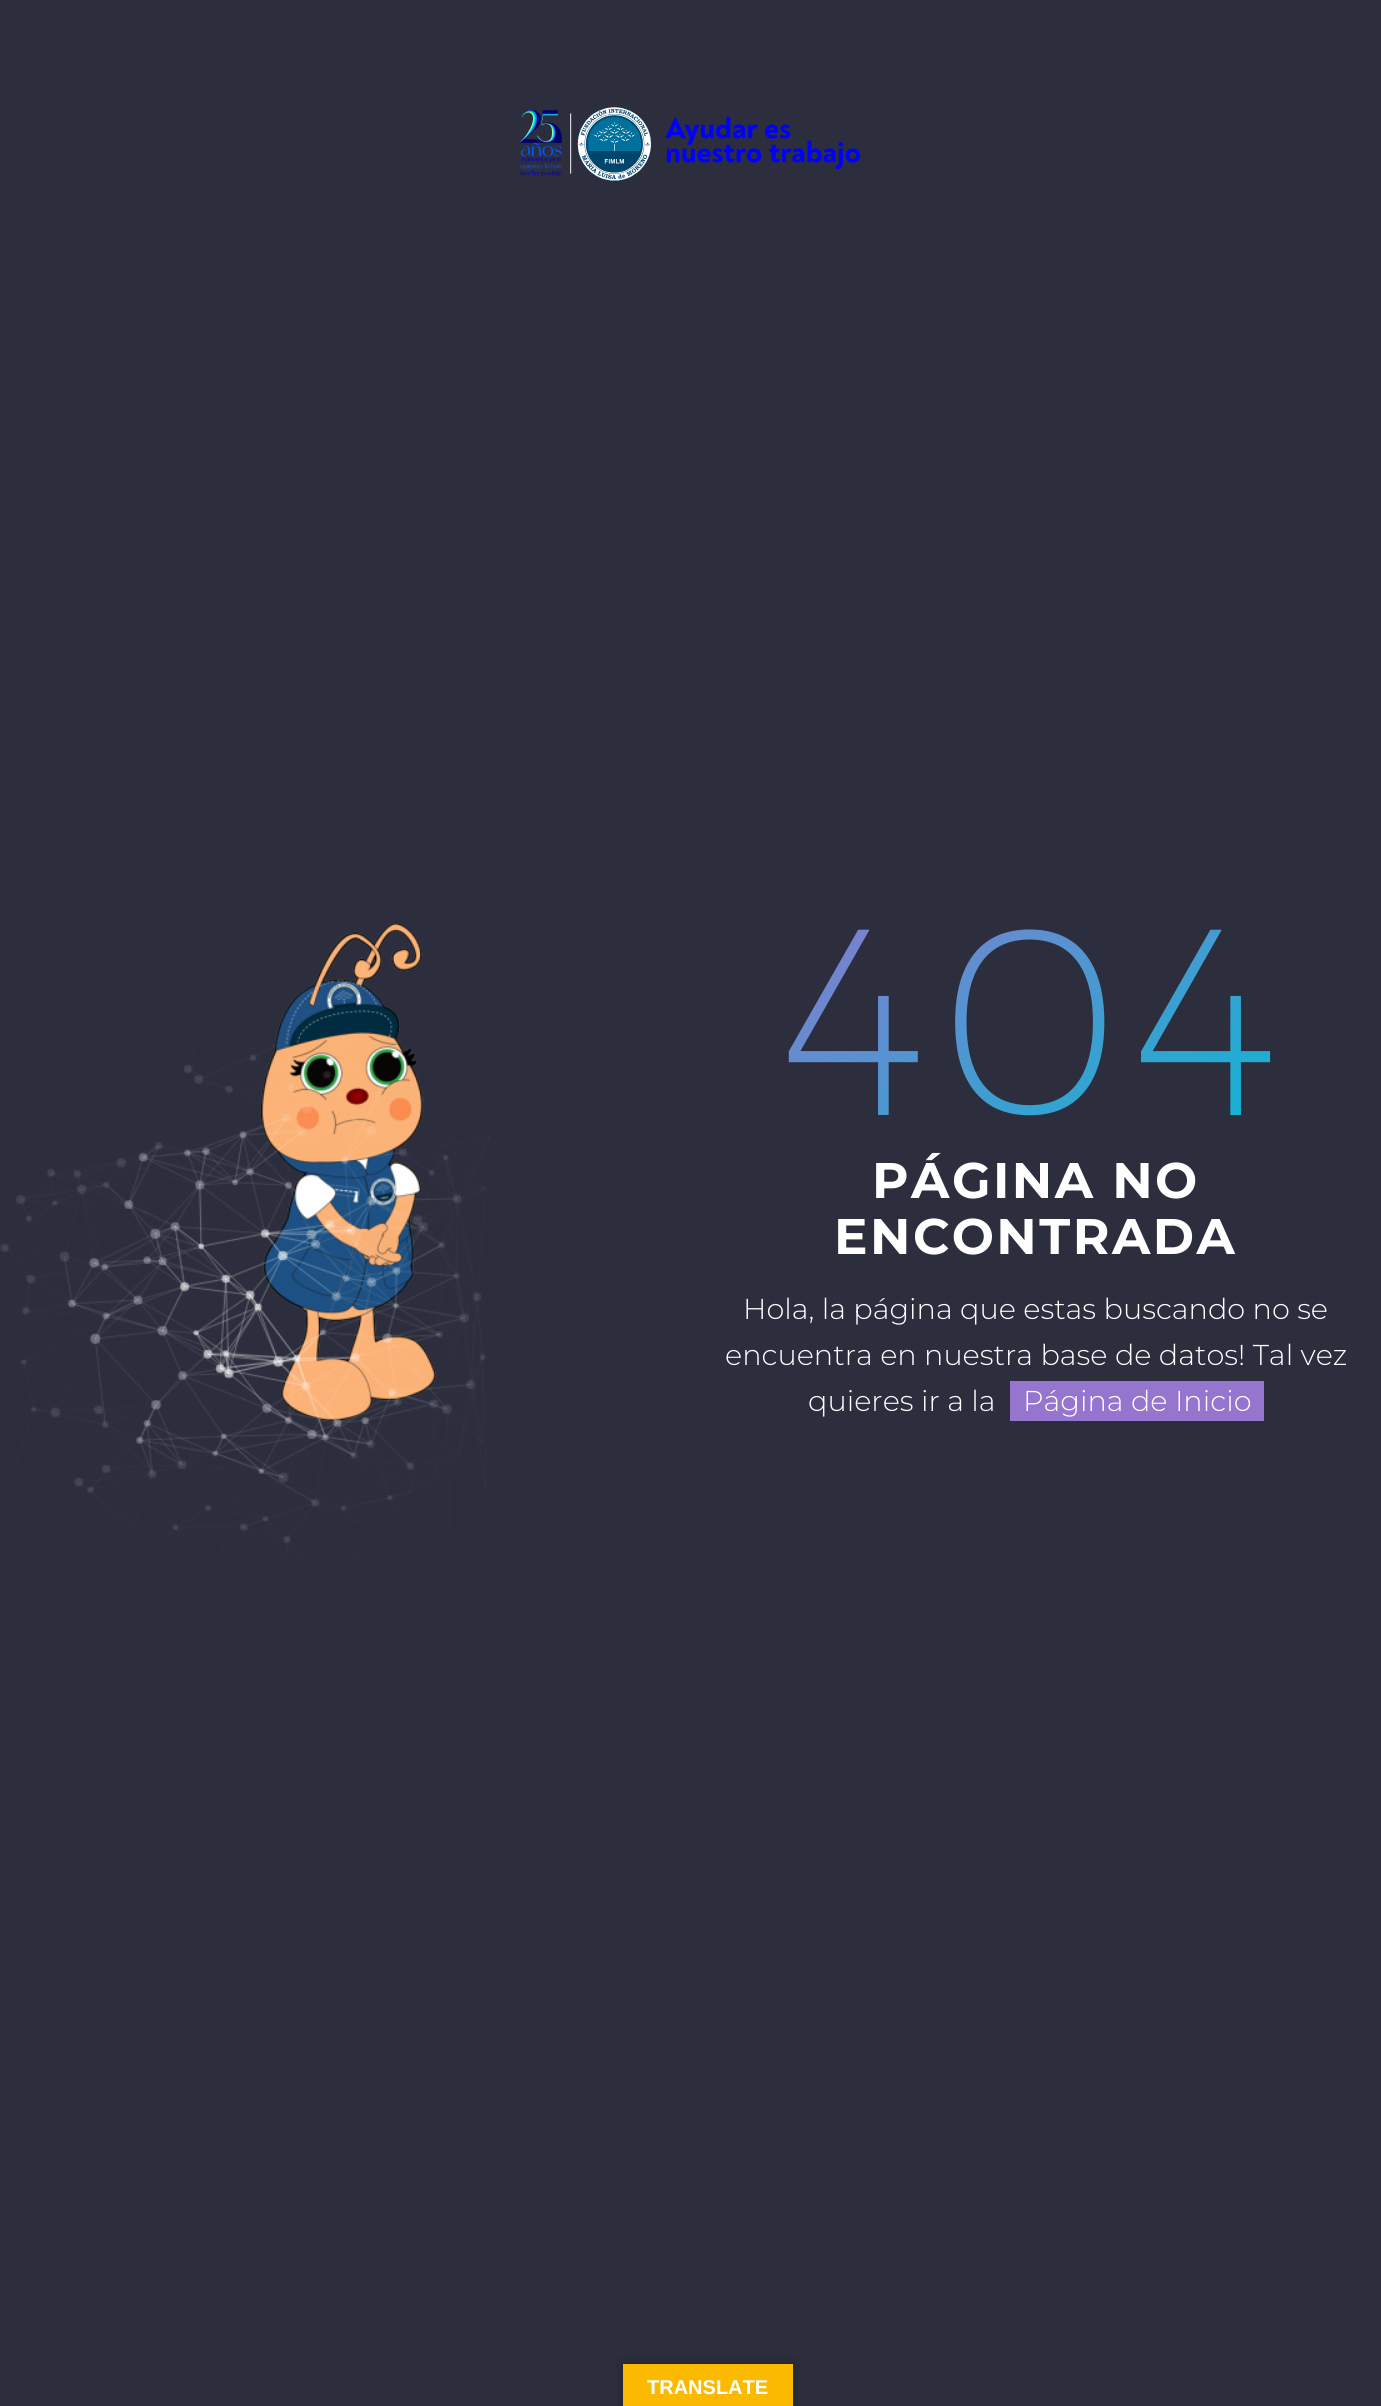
#include <cairo.h>
#include <math.h>
#include <stddef.h>

typedef struct { const char *family; double size; int italic, bold; unsigned color; } style_t;
static cairo_t *ctx;

static void ink(unsigned color) {
    cairo_set_source_rgb(ctx, (color >> 16) / 255.0, (color >> 8 & 255) / 255.0, (color & 255) / 255.0);
}

static void write(double x, double y, const char *s, const style_t *st) {
    cairo_select_font_face(ctx, st->family, st->italic ? CAIRO_FONT_SLANT_ITALIC : CAIRO_FONT_SLANT_NORMAL,
        st->bold ? CAIRO_FONT_WEIGHT_BOLD : CAIRO_FONT_WEIGHT_NORMAL);
    cairo_set_font_size(ctx, st->size);
    ink(st->color);
    cairo_move_to(ctx, x, y);
    cairo_show_text(ctx, s);
}

static void write_spaced(double x, double y, const char *s, double letter, double word) {
    cairo_move_to(ctx, x, y);
    while (*s) {
        char ch[5] = {0};
        int n = 0;
        do ch[n++] = *s++; while ((*s & 0xC0) == 0x80);
        cairo_show_text(ctx, ch);
        cairo_rel_move_to(ctx, letter + word * (*ch == ' '), 0);
    }
}

static void block(double x, double y, double w, double h, unsigned color) {
    ink(color);
    cairo_rectangle(ctx, x, y, w, h);
    cairo_fill(ctx);
}

static void round_path(double x, double y, double w, double h, double r) {
    cairo_new_sub_path(ctx);
    cairo_arc(ctx, x + w - r, y + h - r, r, 0, M_PI / 2);
    cairo_arc(ctx, x + r, y + h - r, r, M_PI / 2, M_PI);
    cairo_arc(ctx, x + r, y + r, r, M_PI, 1.5 * M_PI);
    cairo_arc(ctx, x + w - r, y + r, r, 1.5 * M_PI, 2 * M_PI);
    cairo_close_path(ctx);
}

static void blur_box(double x, double y, double w, double h, double r, double blur, double alpha) {
    cairo_push_group_with_content(ctx, CAIRO_CONTENT_ALPHA);
    cairo_set_operator(ctx, CAIRO_OPERATOR_SOURCE);
    for (int i = 15; i >= -15 && fmin(w, h) + blur * i / 3 > 0; i -= 2) {
        double e = blur * i / 6;
        cairo_set_source_rgba(ctx, 0, 0, 0, alpha * erfc((i - 1) / 8.5) / 2);
        round_path(x - e, y - e, w + 2 * e, h + 2 * e, fmax(0, fmin(r + e + blur * .6, fmin(w, h) / 2 + e)));
        cairo_fill(ctx);
    }
    cairo_pattern_t *soft = cairo_pop_group(ctx);
    cairo_mask(ctx, soft);
    cairo_pattern_destroy(soft);
}

static void paste(const char *path, double x, double y, double w, double h) {
    cairo_surface_t *image = cairo_image_surface_create_from_png(path);
    cairo_save(ctx);
    cairo_set_source_surface(ctx, image, x, y);
    cairo_rectangle(ctx, x, y, w, h);
    cairo_fill(ctx);
    cairo_restore(ctx);
    cairo_surface_destroy(image);
}

static const style_t s1 = {"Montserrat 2 Thin", 28.75, 0, 0, 0xffffff};
static const style_t s2 = {"Liberation Sans", 20, 0, 1, 0xffffff};

int main(void) {
    cairo_surface_t *surface = cairo_image_surface_create(CAIRO_FORMAT_RGB24, 1381, 2406);
    ctx = cairo_create(surface);
    cairo_font_options_t *options = cairo_font_options_create();
    cairo_font_options_set_hint_metrics(options, CAIRO_HINT_METRICS_OFF);
    cairo_font_options_set_hint_style(options, CAIRO_HINT_STYLE_NONE);
    cairo_set_font_options(ctx, options);
    cairo_set_miter_limit(ctx, 4);
    cairo_pattern_t *gradient;
    ink(0x2c2e3d);
    cairo_paint(ctx);
    paste("pic1.png", 520, 107, 341, 74);
    paste("pic2.png", 260, 922, 177, 500);
    paste("pic3.png", 0, 1044, 490, 517);
    cairo_select_font_face(ctx, "Montserrat ExtraLight", CAIRO_FONT_SLANT_NORMAL, CAIRO_FONT_WEIGHT_NORMAL);
    cairo_set_font_size(ctx, 265);
    gradient = cairo_pattern_create_linear(780, 860, 1061, 1318);
    cairo_pattern_add_color_stop_rgba(gradient, 0, 0.584, 0.459, 0.804, 1);
    cairo_pattern_add_color_stop_rgba(gradient, 1, 0, 0.737, 0.831, 1);
    cairo_set_source(ctx, gradient);
    cairo_pattern_destroy(gradient);
    write_spaced(780, 1115, "404", 13, 0);
    cairo_select_font_face(ctx, "Montserrat Thin", CAIRO_FONT_SLANT_NORMAL, CAIRO_FONT_WEIGHT_NORMAL);
    cairo_set_font_size(ctx, 50);
    ink(0xffffff);
    write_spaced(872, 1198, "PÁGINA NO", 2.5, 0);
    write_spaced(834, 1254, "ENCONTRADA", 2.5, 0);
    write(743, 1319, "Hola, la página que estas buscando no se", &s1);
    write(725, 1365, "encuentra en nuestra base de datos! Tal vez", &s1);
    write(808, 1411, "quieres ir a la", &s1);
    block(1010, 1381, 254, 40, 0x9575cd);
    write(1023, 1411, "Página de Inicio", &s1);
    ink(0x000000);
    blur_box(623, 2364, 170, 42, 0, 5.5, 0.3);
    block(623, 2364, 170, 42, 0xfbba00);
    write(647, 2394, "TRANSLATE", &s2);
    cairo_surface_write_to_png(surface, "screenshot.png");
    cairo_font_options_destroy(options);
    cairo_destroy(ctx);
    cairo_surface_destroy(surface);
    return 0;
}
